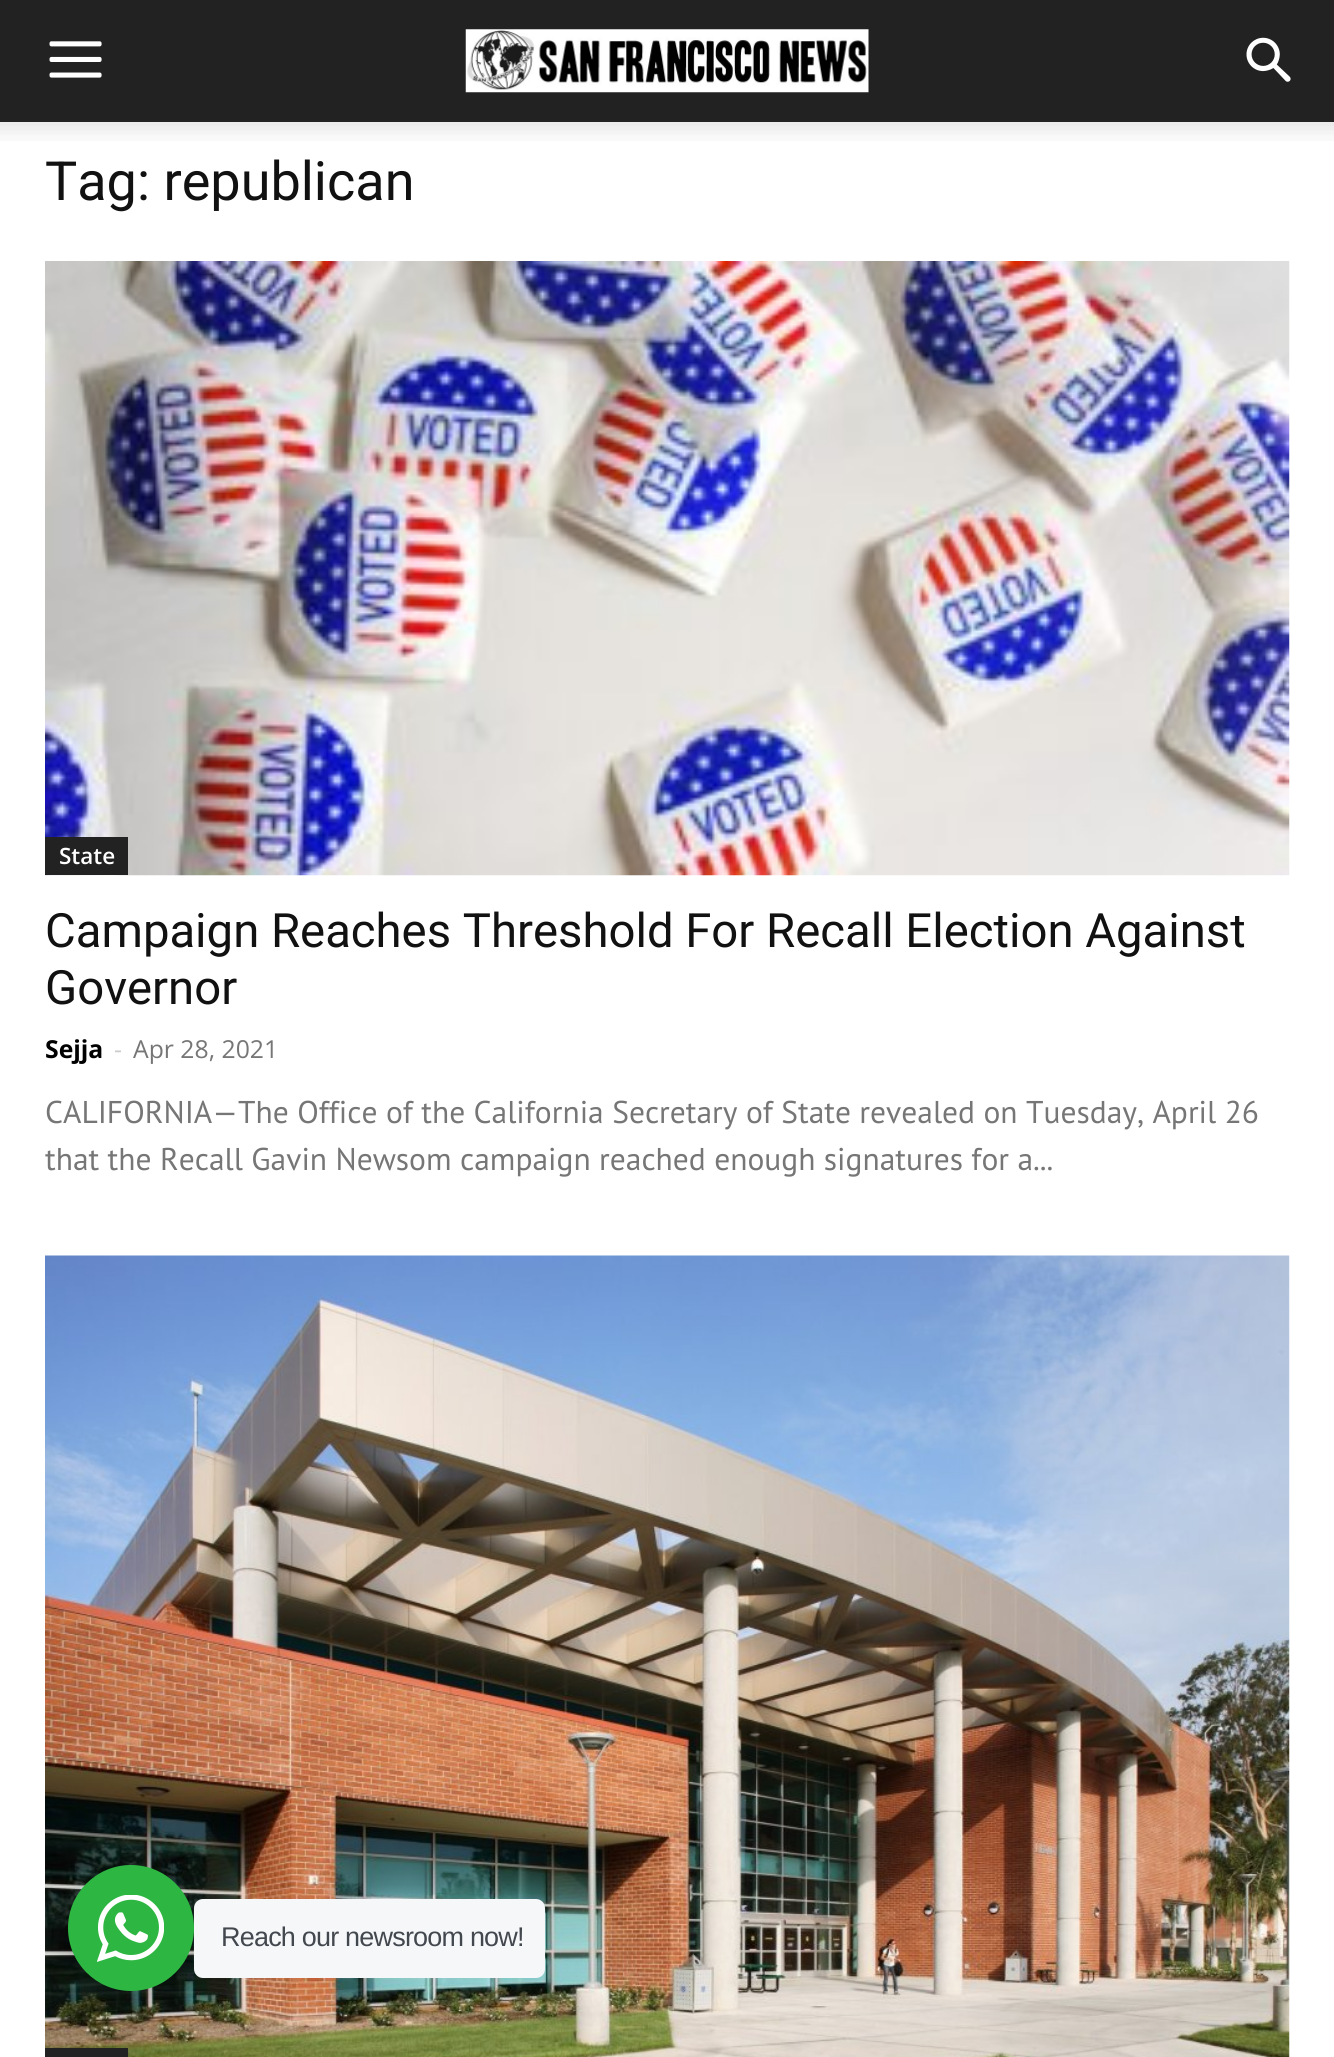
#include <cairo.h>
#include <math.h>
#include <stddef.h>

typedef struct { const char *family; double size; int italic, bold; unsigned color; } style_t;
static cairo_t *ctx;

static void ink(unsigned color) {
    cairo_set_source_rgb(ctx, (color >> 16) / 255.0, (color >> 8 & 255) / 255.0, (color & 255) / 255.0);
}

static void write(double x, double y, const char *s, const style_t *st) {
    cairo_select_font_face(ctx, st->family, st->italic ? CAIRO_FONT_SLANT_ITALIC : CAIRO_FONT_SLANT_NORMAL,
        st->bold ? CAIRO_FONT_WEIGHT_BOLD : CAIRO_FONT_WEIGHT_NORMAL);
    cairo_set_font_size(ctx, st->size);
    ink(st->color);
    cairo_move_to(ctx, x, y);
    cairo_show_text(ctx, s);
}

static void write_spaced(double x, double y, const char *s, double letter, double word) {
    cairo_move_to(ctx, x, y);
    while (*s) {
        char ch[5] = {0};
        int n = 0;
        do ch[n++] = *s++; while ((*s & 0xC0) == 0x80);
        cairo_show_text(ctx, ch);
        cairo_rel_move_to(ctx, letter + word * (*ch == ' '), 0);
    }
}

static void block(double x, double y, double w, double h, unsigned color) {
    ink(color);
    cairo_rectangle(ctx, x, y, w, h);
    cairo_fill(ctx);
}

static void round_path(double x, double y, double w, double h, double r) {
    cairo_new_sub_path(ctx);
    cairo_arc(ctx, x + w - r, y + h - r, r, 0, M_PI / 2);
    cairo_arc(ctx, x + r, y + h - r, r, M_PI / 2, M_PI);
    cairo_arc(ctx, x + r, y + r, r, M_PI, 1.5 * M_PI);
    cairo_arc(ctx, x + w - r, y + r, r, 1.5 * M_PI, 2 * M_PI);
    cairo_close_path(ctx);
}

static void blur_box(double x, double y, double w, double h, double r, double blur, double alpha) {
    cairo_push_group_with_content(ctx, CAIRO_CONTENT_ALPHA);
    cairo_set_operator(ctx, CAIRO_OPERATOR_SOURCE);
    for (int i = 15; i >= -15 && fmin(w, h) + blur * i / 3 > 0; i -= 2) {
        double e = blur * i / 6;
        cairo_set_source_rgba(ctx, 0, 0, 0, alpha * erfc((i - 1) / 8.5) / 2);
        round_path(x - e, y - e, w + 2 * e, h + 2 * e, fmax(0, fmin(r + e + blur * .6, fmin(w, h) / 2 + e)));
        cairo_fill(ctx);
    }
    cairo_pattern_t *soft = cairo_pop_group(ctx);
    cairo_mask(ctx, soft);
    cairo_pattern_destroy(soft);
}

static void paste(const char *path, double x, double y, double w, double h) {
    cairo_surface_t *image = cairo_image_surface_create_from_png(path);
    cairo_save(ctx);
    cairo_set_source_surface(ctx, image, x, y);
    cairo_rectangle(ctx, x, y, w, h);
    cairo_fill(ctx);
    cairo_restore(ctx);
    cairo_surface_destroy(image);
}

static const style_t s1 = {"Roboto", 54, 0, 0, 0x111111};
static const style_t s2 = {"Open Sans SemiBold", 22.5, 0, 0, 0xffffff};
static const style_t s3 = {"Roboto", 47.25, 0, 0, 0x111111};
static const style_t s4 = {"Open Sans", 24.75, 0, 1, 0x000000};
static const style_t s5 = {"Open Sans", 24.75, 0, 0, 0xcccccc};
static const style_t s6 = {"Open Sans", 24.75, 0, 0, 0x767676};
static const style_t s7 = {"PT Sans", 31.5, 0, 0, 0x767676};

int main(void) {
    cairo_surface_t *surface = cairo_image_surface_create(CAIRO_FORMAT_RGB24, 1334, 2057);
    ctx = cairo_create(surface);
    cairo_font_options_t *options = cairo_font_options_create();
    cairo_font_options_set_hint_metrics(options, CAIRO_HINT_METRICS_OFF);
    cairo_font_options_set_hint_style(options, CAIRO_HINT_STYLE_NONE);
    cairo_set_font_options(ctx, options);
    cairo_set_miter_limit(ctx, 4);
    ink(0xffffff);
    cairo_paint(ctx);
    block(0, 0, 1334, 122, 0x222222);
    paste("pic1.png", 49, 41, 53, 37);
    paste("pic2.png", 465, 29, 404, 64);
    paste("pic3.png", 1246, 37, 45, 45);
    paste("pic4.png", 0, 122, 1334, 19);
    write(45, 200, "Tag: republican", &s1);
    paste("pic5.png", 45, 261, 1245, 615);
    block(45, 837, 83, 38, 0x222222);
    write(59, 864, "State", &s2);
    write(45, 947, "Campaign Reaches Threshold For Recall Election Against", &s3);
    write(45, 1004, "Governor", &s3);
    write(45, 1058, "Sejja", &s4);
    write(114, 1058, "-", &s5);
    write(133, 1058, "Apr 28, 2021", &s6);
    write(45, 1123, "CALIFORNIA—The Office of the California Secretary of State revealed on Tuesday, April 26", &s7);
    write(45, 1170, "that the Recall Gavin Newsom campaign reached enough signatures for a...", &s7);
    paste("pic6.png", 45, 1255, 1245, 802);
    block(45, 2048, 83, 9, 0x222222);
    ink(0x000000);
    blur_box(63, 1874, 135, 135, 67.5, 9, 0.14);
    ink(0x2db742);
    cairo_arc(ctx, 131, 1928, 63, 0, 2 * M_PI);
    cairo_fill(ctx);
    paste("pic7.png", 97, 1895, 67, 67);
    ink(0xf5f7f9);
    round_path(194, 1899, 351, 79, 9);
    cairo_fill(ctx);
    cairo_select_font_face(ctx, "Liberation Sans", CAIRO_FONT_SLANT_NORMAL, CAIRO_FONT_WEIGHT_NORMAL);
    cairo_set_font_size(ctx, 27);
    ink(0x43474e);
    write_spaced(221, 1946, "Reach our newsroom now!", -0.8, 0);
    cairo_surface_write_to_png(surface, "screenshot.png");
    cairo_font_options_destroy(options);
    cairo_destroy(ctx);
    cairo_surface_destroy(surface);
    return 0;
}
